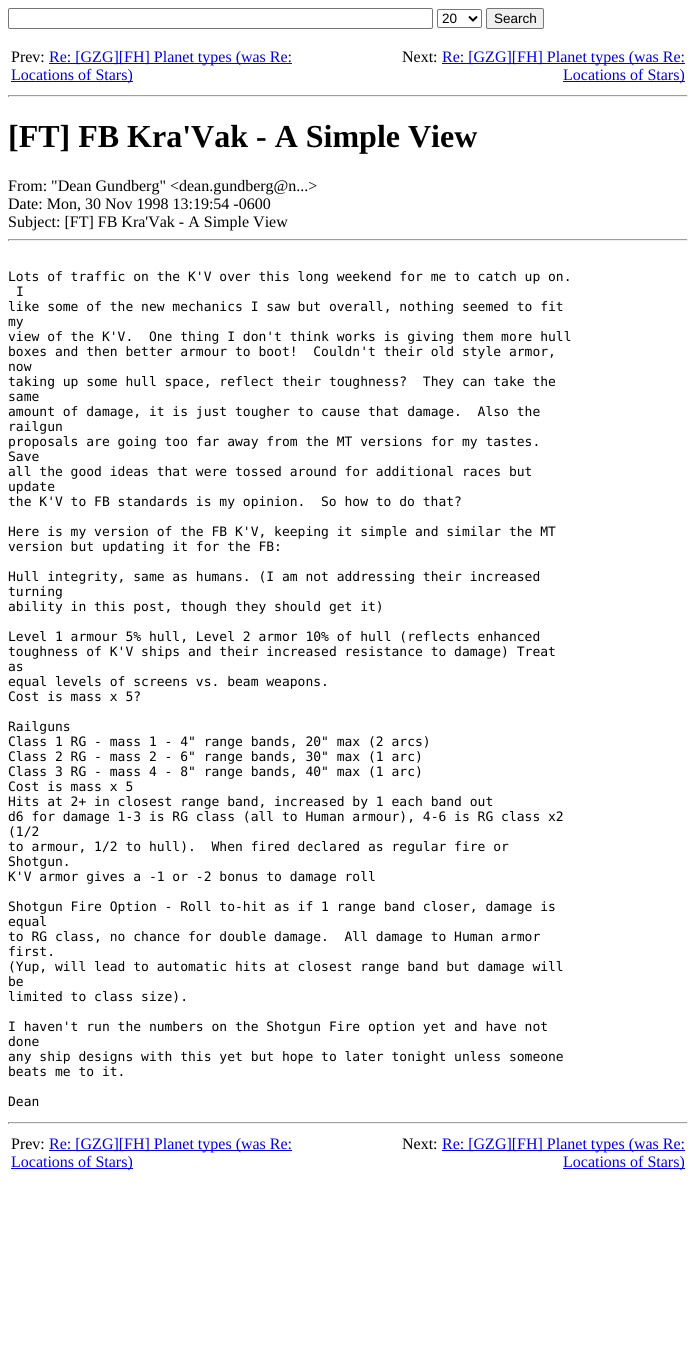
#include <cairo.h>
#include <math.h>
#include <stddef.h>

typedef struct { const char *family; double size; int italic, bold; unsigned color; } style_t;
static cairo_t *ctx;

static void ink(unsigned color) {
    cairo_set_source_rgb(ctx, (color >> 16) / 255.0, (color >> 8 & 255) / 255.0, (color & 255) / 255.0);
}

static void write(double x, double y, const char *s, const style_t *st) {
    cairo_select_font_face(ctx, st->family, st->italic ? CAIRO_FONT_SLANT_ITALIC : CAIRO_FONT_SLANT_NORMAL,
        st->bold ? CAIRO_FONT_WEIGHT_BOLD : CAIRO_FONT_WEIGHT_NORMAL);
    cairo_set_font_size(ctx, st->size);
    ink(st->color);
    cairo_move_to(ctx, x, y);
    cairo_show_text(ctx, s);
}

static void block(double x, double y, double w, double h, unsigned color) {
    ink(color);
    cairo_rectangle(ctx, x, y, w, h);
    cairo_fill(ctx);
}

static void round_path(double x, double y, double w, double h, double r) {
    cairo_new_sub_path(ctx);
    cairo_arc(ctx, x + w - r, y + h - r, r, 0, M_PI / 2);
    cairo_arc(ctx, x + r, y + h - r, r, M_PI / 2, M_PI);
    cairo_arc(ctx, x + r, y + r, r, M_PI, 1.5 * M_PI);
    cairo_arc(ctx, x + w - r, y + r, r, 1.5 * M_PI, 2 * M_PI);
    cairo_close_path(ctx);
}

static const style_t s1 = {"Liberation Sans", 13.5, 0, 0, 0x000000};
static const style_t s2 = {"Liberation Serif", 16, 0, 0, 0x000000};
static const style_t s3 = {"Liberation Serif", 16, 0, 0, 0x0000ee};
static const style_t s4 = {"Liberation Serif", 32, 0, 1, 0x000000};
static const style_t s5 = {"DejaVu Sans Mono", 13, 0, 0, 0x000000};

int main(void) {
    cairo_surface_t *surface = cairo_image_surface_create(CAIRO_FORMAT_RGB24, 696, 1352);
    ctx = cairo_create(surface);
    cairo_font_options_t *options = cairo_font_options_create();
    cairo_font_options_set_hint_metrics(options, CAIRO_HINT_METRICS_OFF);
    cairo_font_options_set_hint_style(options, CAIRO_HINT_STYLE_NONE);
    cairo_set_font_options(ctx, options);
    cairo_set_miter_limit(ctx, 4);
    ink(0xffffff);
    cairo_paint(ctx);
    round_path(8.5, 8.5, 424, 20, 1.5);
    ink(0x767676);
    cairo_set_line_width(ctx, 1);
    cairo_stroke(ctx);
    round_path(437.5, 9.5, 44, 18, 1.5);
    cairo_stroke(ctx);
    cairo_new_path(ctx);
    cairo_move_to(ctx, 469, 16.5);
    cairo_line_to(ctx, 473, 20.5);
    cairo_line_to(ctx, 477, 16.5);
    ink(0x000000);
    cairo_set_line_width(ctx, 2);
    cairo_stroke(ctx);
    write(442, 23, "20", &s1);
    ink(0xefefef);
    round_path(486.5, 8.5, 57, 20, 1.5);
    cairo_fill_preserve(ctx);
    ink(0x767676);
    cairo_set_line_width(ctx, 1);
    cairo_stroke(ctx);
    write(494, 23, "Search", &s1);
    write(11, 62, "Prev:", &s2);
    block(49, 63, 243, 1, 0x0000ee);
    write(49, 62, "Re: [GZG][FH] Planet types (was Re:", &s3);
    block(11, 81, 122, 1, 0x0000ee);
    write(11, 80, "Locations of Stars)", &s3);
    write(402, 62, "Next:", &s2);
    block(442, 63, 243, 1, 0x0000ee);
    write(442, 62, "Re: [GZG][FH] Planet types (was Re:", &s3);
    block(563, 81, 122, 1, 0x0000ee);
    write(563, 80, "Locations of Stars)", &s3);
    block(8, 95, 680, 1, 0x9f9f9f);
    block(687, 95, 1, 2, 0xeeeeee);
    block(8, 96, 680, 1, 0xeeeeee);
    block(8, 95, 1, 2, 0x9f9f9f);
    write(8, 147, "[FT] FB Kra'Vak - A Simple View", &s4);
    write(8, 191, "From: \"Dean Gundberg\" <dean.gundberg@n...>", &s2);
    write(8, 209, "Date: Mon, 30 Nov 1998 13:19:54 -0600", &s2);
    write(8, 227, "Subject: [FT] FB Kra'Vak - A Simple View", &s2);
    block(8, 239, 680, 1, 0x9f9f9f);
    block(687, 239, 1, 2, 0xeeeeee);
    block(8, 240, 680, 1, 0xeeeeee);
    block(8, 239, 1, 2, 0x9f9f9f);
    write(8, 281, "Lots of traffic on the K'V over this long weekend for me to catch up on.", &s5);
    write(16, 296, "I", &s5);
    write(8, 311, "like some of the new mechanics I saw but overall, nothing seemed to fit", &s5);
    write(8, 326, "my", &s5);
    write(8, 341, "view of the K'V.  One thing I don't think works is giving them more hull", &s5);
    write(8, 356, "boxes and then better armour to boot!  Couldn't their old style armor,", &s5);
    write(8, 371, "now", &s5);
    write(8, 386, "taking up some hull space, reflect their toughness?  They can take the", &s5);
    write(8, 401, "same", &s5);
    write(8, 416, "amount of damage, it is just tougher to cause that damage.  Also the", &s5);
    write(8, 431, "railgun", &s5);
    write(8, 446, "proposals are going too far away from the MT versions for my tastes.", &s5);
    write(8, 461, "Save", &s5);
    write(8, 476, "all the good ideas that were tossed around for additional races but", &s5);
    write(8, 491, "update", &s5);
    write(8, 506, "the K'V to FB standards is my opinion.", &s5);
    write(321, 506, "So how to do that?", &s5);
    write(8, 536, "Here is my version of the FB K'V, keeping it simple and similar the MT", &s5);
    write(8, 551, "version but updating it for the FB:", &s5);
    write(8, 581, "Hull integrity, same as humans. (I am not addressing their increased", &s5);
    write(8, 596, "turning", &s5);
    write(8, 611, "ability in this post, though they should get it)", &s5);
    write(8, 641, "Level 1 armour 5% hull, Level 2 armor 10% of hull (reflects enhanced", &s5);
    write(8, 656, "toughness of K'V ships and their increased resistance to damage) Treat", &s5);
    write(8, 671, "as", &s5);
    write(8, 686, "equal levels of screens vs. beam weapons.", &s5);
    write(8, 701, "Cost is mass x 5?", &s5);
    write(8, 731, "Railguns", &s5);
    write(8, 746, "Class 1 RG - mass 1 - 4\" range bands, 20\" max (2 arcs)", &s5);
    write(8, 761, "Class 2 RG - mass 2 - 6\" range bands, 30\" max (1 arc)", &s5);
    write(8, 776, "Class 3 RG - mass 4 - 8\" range bands, 40\" max (1 arc)", &s5);
    write(8, 791, "Cost is mass x 5", &s5);
    write(8, 806, "Hits at 2+ in closest range band, increased by 1 each band out", &s5);
    write(8, 821, "d6 for damage 1-3 is RG class (all to Human armour), 4-6 is RG class x2", &s5);
    write(8, 836, "(1/2", &s5);
    write(8, 851, "to armour, 1/2 to hull).  When fired declared as regular fire or", &s5);
    write(8, 866, "Shotgun.", &s5);
    write(8, 881, "K'V armor gives a -1 or -2 bonus to damage roll", &s5);
    write(8, 911, "Shotgun Fire Option - Roll to-hit as if 1 range band closer, damage is", &s5);
    write(8, 926, "equal", &s5);
    write(8, 941, "to RG class, no chance for double damage.  All damage to Human armor", &s5);
    write(8, 956, "first.", &s5);
    write(8, 971, "(Yup, will lead to automatic hits at closest range band but damage will", &s5);
    write(8, 986, "be", &s5);
    write(8, 1001, "limited to class size).", &s5);
    write(8, 1031, "I haven't run the numbers on the Shotgun Fire option yet and have not", &s5);
    write(8, 1046, "done", &s5);
    write(8, 1061, "any ship designs with this yet but hope to later tonight unless someone", &s5);
    write(8, 1076, "beats me to it.", &s5);
    write(8, 1106, "Dean", &s5);
    block(8, 1122, 680, 1, 0x9f9f9f);
    block(687, 1122, 1, 2, 0xeeeeee);
    block(8, 1123, 680, 1, 0xeeeeee);
    block(8, 1122, 1, 2, 0x9f9f9f);
    write(11, 1149, "Prev:", &s2);
    block(49, 1150, 243, 1, 0x0000ee);
    write(49, 1149, "Re: [GZG][FH] Planet types (was Re:", &s3);
    block(11, 1168, 122, 1, 0x0000ee);
    write(11, 1167, "Locations of Stars)", &s3);
    write(402, 1149, "Next:", &s2);
    block(442, 1150, 243, 1, 0x0000ee);
    write(442, 1149, "Re: [GZG][FH] Planet types (was Re:", &s3);
    block(563, 1168, 122, 1, 0x0000ee);
    write(563, 1167, "Locations of Stars)", &s3);
    cairo_surface_write_to_png(surface, "screenshot.png");
    cairo_font_options_destroy(options);
    cairo_destroy(ctx);
    cairo_surface_destroy(surface);
    return 0;
}
